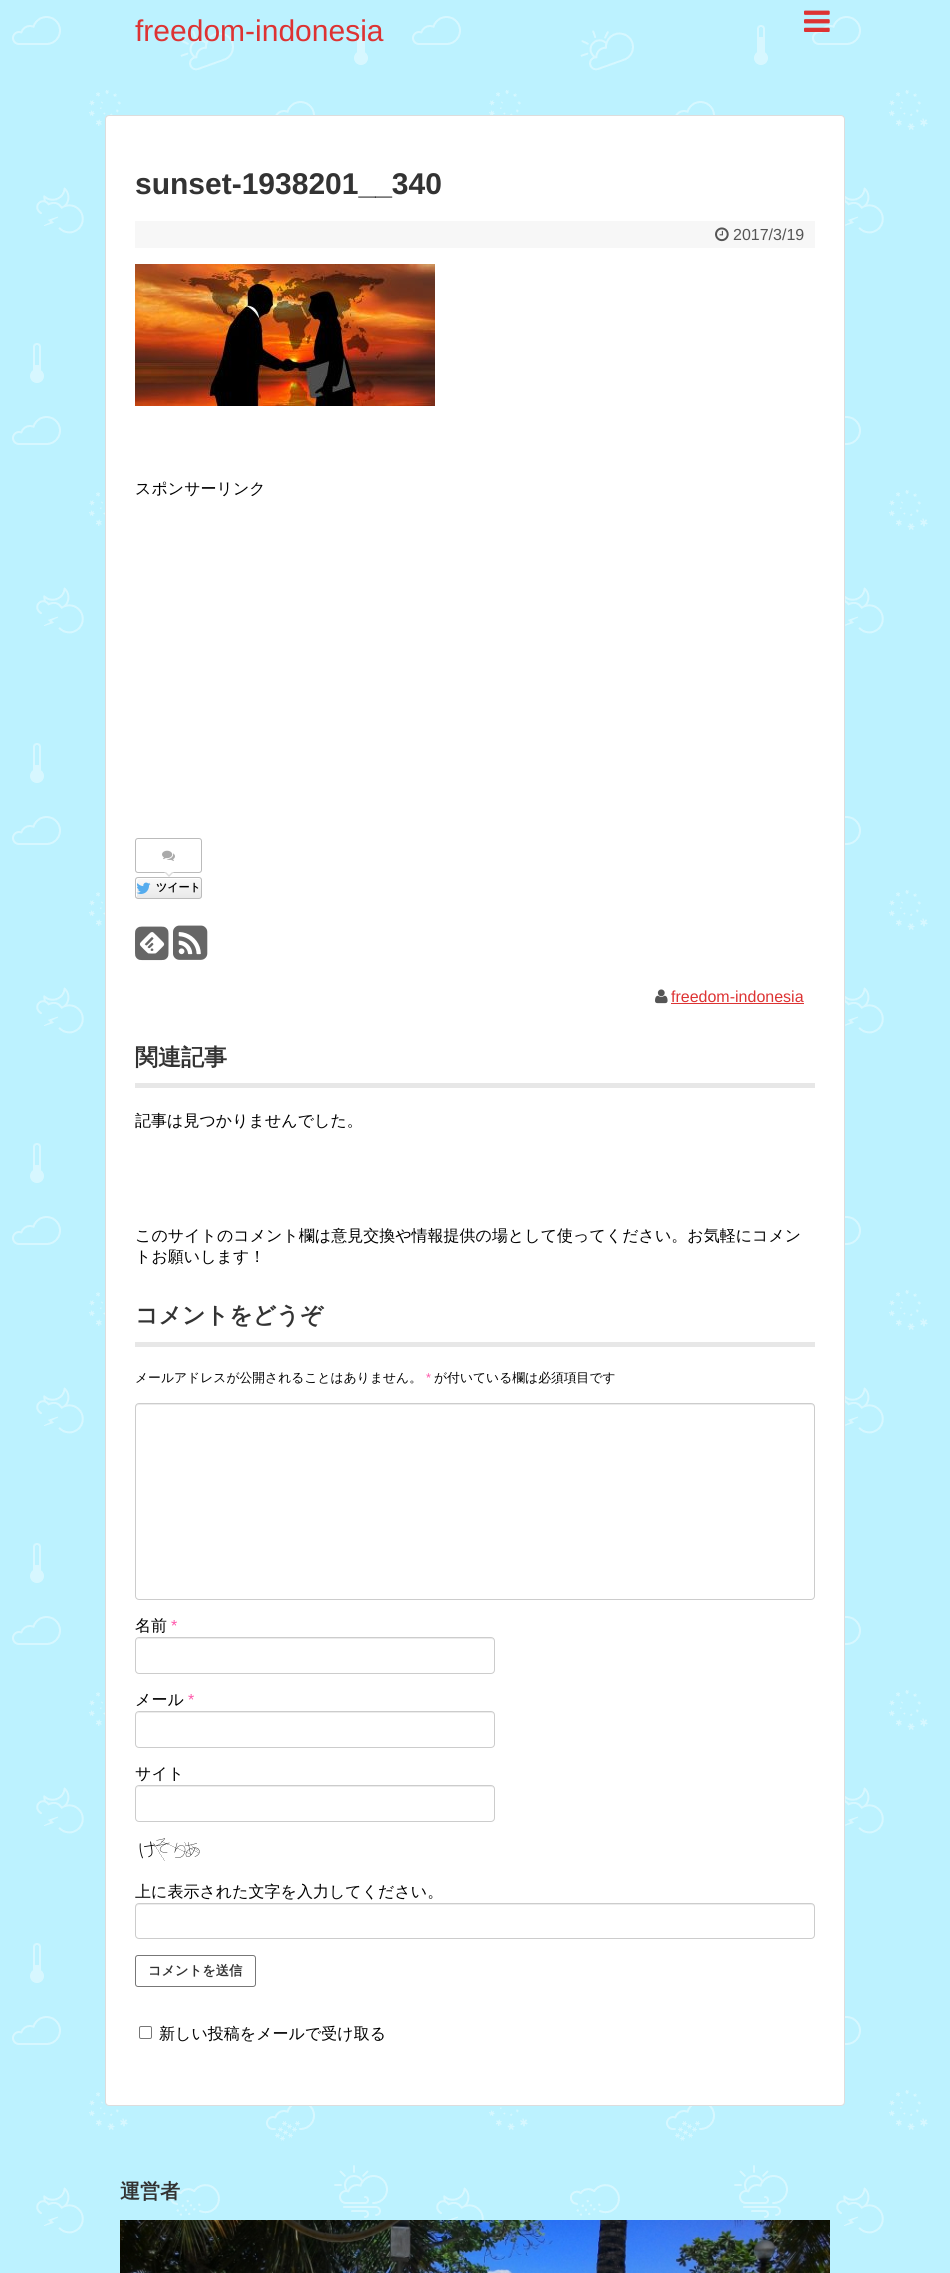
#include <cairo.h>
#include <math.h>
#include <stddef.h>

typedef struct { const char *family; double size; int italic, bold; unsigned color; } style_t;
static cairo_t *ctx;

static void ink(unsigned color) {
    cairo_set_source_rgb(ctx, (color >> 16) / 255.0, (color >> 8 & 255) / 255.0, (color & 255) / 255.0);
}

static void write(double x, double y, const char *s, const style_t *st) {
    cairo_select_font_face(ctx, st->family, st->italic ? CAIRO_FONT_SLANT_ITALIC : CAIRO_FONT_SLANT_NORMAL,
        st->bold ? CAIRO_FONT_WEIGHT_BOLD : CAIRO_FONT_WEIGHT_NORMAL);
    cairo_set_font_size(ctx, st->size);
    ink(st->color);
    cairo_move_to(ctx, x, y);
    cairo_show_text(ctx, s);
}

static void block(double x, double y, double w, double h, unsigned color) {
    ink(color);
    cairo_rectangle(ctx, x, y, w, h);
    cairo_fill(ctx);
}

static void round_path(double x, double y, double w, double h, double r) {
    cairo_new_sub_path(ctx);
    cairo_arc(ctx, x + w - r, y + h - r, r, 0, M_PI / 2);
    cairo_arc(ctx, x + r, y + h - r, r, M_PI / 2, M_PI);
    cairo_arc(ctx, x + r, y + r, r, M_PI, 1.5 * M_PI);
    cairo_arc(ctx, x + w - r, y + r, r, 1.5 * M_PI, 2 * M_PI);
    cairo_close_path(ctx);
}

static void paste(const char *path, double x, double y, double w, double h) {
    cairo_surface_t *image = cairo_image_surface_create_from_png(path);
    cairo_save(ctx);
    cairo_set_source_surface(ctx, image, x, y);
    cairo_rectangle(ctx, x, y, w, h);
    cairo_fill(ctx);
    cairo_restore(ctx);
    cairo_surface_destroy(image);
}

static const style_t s1 = {"Liberation Sans", 30, 0, 0, 0xdd3333};
static const style_t s2 = {"Liberation Sans", 30, 0, 1, 0x333333};
static const style_t s3 = {"Liberation Sans", 16, 0, 0, 0x555555};
static const style_t s4 = {"WenQuanYi Zen Hei Medium", 16, 0, 0, 0x000000};
static const style_t s5 = {"WenQuanYi Zen Hei", 11, 0, 1, 0x000000};
static const style_t s6 = {"Liberation Sans", 16, 0, 0, 0xdd3333};
static const style_t s7 = {"WenQuanYi Zen Hei", 23, 0, 1, 0x333333};
static const style_t s8 = {"WenQuanYi Zen Hei Medium", 12.8, 0, 0, 0x000000};
static const style_t s9 = {"Liberation Sans", 12.8, 0, 0, 0xfe56aa};
static const style_t s10 = {"Liberation Sans", 16, 0, 0, 0xfe56aa};
static const style_t s11 = {"WenQuanYi Zen Hei", 13.25, 0, 1, 0x333333};
static const style_t s12 = {"WenQuanYi Zen Hei", 20, 0, 1, 0x333333};

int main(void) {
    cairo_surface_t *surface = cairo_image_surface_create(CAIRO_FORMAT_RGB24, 950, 2273);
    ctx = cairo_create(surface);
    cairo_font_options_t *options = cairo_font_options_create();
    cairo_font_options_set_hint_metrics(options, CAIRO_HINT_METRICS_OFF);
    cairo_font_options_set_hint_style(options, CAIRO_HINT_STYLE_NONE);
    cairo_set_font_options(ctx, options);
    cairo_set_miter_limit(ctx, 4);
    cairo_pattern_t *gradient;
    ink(0xffffff);
    cairo_paint(ctx);
    paste("pic1.png", 0, 0, 950, 2273);
    write(135, 41, "freedom-indonesia", &s1);
    paste("pic2.png", 804, 10, 26, 22);
    ink(0xffffff);
    round_path(105.5, 115.5, 739, 1990, 3.5);
    cairo_fill_preserve(ctx);
    ink(0xdddddd);
    cairo_set_line_width(ctx, 1);
    cairo_stroke(ctx);
    write(135, 194, "sunset-1938201__340", &s2);
    block(135, 221, 680, 27, 0xf7f7f7);
    paste("pic3.png", 715, 227, 14, 15);
    write(733, 240, "2017/3/19", &s3);
    paste("pic4.png", 135, 264, 300, 142);
    write(135, 494, "スポンサーリンク", &s4);
    round_path(135.5, 838.5, 66, 34, 2.5);
    ink(0xbbbbbb);
    cairo_stroke(ctx);
    paste("pic5.png", 162, 850, 13, 11);
    ink(0xdddddd);
    cairo_new_path(ctx);
    cairo_move_to(ctx, 164, 872);
    cairo_line_to(ctx, 174, 872);
    cairo_line_to(ctx, 169, 877);
    cairo_close_path(ctx);
    cairo_fill(ctx);
    ink(0xffffff);
    cairo_new_path(ctx);
    cairo_move_to(ctx, 166, 872);
    cairo_line_to(ctx, 172, 872);
    cairo_line_to(ctx, 169, 875);
    cairo_close_path(ctx);
    cairo_fill(ctx);
    cairo_save(ctx);
    round_path(135, 877, 67, 22, 3);
    cairo_clip(ctx);
    gradient = cairo_pattern_create_linear(136, 878, 136, 898);
    cairo_pattern_add_color_stop_rgba(gradient, 0.05, 0.976, 0.976, 0.976, 1);
    cairo_pattern_add_color_stop_rgba(gradient, 1, 0.914, 0.914, 0.914, 1);
    cairo_set_source(ctx, gradient);
    cairo_pattern_destroy(gradient);
    cairo_rectangle(ctx, 135, 878, 67, 20);
    cairo_fill(ctx);
    cairo_restore(ctx);
    cairo_new_path(ctx);
    cairo_move_to(ctx, 139, 879);
    cairo_line_to(ctx, 201, 879);
    cairo_line_to(ctx, 199, 878);
    cairo_line_to(ctx, 138, 878);
    cairo_curve_to(ctx, 137, 878, 136, 879, 136, 880);
    cairo_curve_to(ctx, 136, 883, 135, 897, 137, 898);
    cairo_line_to(ctx, 137, 889);
    cairo_curve_to(ctx, 137, 887, 136, 879, 139, 879);
    cairo_close_path(ctx);
    cairo_fill(ctx);
    round_path(135.5, 877.5, 66, 21, 2.5);
    ink(0xbbbbbb);
    cairo_stroke(ctx);
    paste("pic6.png", 136, 882, 15, 12);
    write(156, 891, "ツイート", &s5);
    paste("pic7.png", 135, 926, 34, 35);
    paste("pic8.png", 173, 925, 35, 35);
    paste("pic9.png", 655, 989, 13, 15);
    write(671, 1002, "freedom-indonesia", &s6);
    block(671, 1003, 133, 1, 0xdd3333);
    block(135, 1083, 680, 5, 0xe7e7e7);
    write(135, 1065, "関連記事", &s7);
    write(135, 1126, "記事は見つかりませんでした。", &s4);
    write(135, 1241, "このサイトのコメント欄は意見交換や情報提供の場として使ってください。お気軽にコメン", &s4);
    write(135, 1262, "トお願いします！", &s4);
    block(135, 1342, 680, 5, 0xe7e7e7);
    write(135, 1323, "コメントをどうぞ", &s7);
    write(135, 1382, "メールアドレスが公開されることはありません。", &s8);
    write(426, 1382, "*", &s9);
    write(434, 1382, "が付いている欄は必須項目です", &s8);
    ink(0xececec);
    cairo_new_path(ctx);
    cairo_move_to(ctx, 139, 1405);
    cairo_line_to(ctx, 811, 1405);
    cairo_curve_to(ctx, 813, 1405, 814, 1406, 814, 1408);
    cairo_line_to(ctx, 814, 1407);
    cairo_curve_to(ctx, 814, 1405, 813, 1404, 811, 1404);
    cairo_line_to(ctx, 139, 1404);
    cairo_curve_to(ctx, 137, 1404, 136, 1405, 136, 1407);
    cairo_line_to(ctx, 136, 1408);
    cairo_curve_to(ctx, 136, 1406, 137, 1405, 139, 1405);
    cairo_close_path(ctx);
    cairo_fill(ctx);
    round_path(135.5, 1403.5, 679, 196, 3.5);
    ink(0xcccccc);
    cairo_stroke(ctx);
    write(135, 1631, "名前", &s4);
    write(171, 1631, "*", &s10);
    ink(0xececec);
    cairo_new_path(ctx);
    cairo_move_to(ctx, 139, 1639);
    cairo_line_to(ctx, 491, 1639);
    cairo_curve_to(ctx, 493, 1639, 494, 1640, 494, 1642);
    cairo_curve_to(ctx, 494, 1640, 493, 1638, 491, 1638);
    cairo_line_to(ctx, 139, 1638);
    cairo_line_to(ctx, 137, 1639);
    cairo_line_to(ctx, 136, 1642);
    cairo_curve_to(ctx, 136, 1640, 137, 1639, 139, 1639);
    cairo_close_path(ctx);
    cairo_fill(ctx);
    round_path(135.5, 1637.5, 359, 36, 3.5);
    ink(0xcccccc);
    cairo_stroke(ctx);
    write(135, 1705, "メール", &s4);
    write(188, 1705, "*", &s10);
    ink(0xececec);
    cairo_new_path(ctx);
    cairo_move_to(ctx, 139, 1713);
    cairo_line_to(ctx, 491, 1713);
    cairo_curve_to(ctx, 493, 1713, 494, 1714, 494, 1716);
    cairo_curve_to(ctx, 494, 1714, 493, 1712, 491, 1712);
    cairo_line_to(ctx, 139, 1712);
    cairo_line_to(ctx, 137, 1713);
    cairo_line_to(ctx, 136, 1716);
    cairo_curve_to(ctx, 136, 1714, 137, 1713, 139, 1713);
    cairo_close_path(ctx);
    cairo_fill(ctx);
    round_path(135.5, 1711.5, 359, 36, 3.5);
    ink(0xcccccc);
    cairo_stroke(ctx);
    write(135, 1779, "サイト", &s4);
    ink(0xececec);
    cairo_new_path(ctx);
    cairo_move_to(ctx, 139, 1787);
    cairo_line_to(ctx, 491, 1787);
    cairo_curve_to(ctx, 493, 1787, 494, 1788, 494, 1790);
    cairo_curve_to(ctx, 494, 1788, 493, 1786, 491, 1786);
    cairo_line_to(ctx, 139, 1786);
    cairo_line_to(ctx, 137, 1787);
    cairo_line_to(ctx, 136, 1790);
    cairo_curve_to(ctx, 136, 1788, 137, 1787, 139, 1787);
    cairo_close_path(ctx);
    cairo_fill(ctx);
    round_path(135.5, 1785.5, 359, 36, 3.5);
    ink(0xcccccc);
    cairo_stroke(ctx);
    paste("pic10.png", 139, 1838, 61, 23);
    write(135, 1897, "上に表示された文字を入力してください。", &s4);
    ink(0xececec);
    cairo_new_path(ctx);
    cairo_move_to(ctx, 139, 1905);
    cairo_line_to(ctx, 811, 1905);
    cairo_curve_to(ctx, 813, 1905, 814, 1906, 814, 1908);
    cairo_line_to(ctx, 814, 1907);
    cairo_curve_to(ctx, 814, 1905, 813, 1904, 811, 1904);
    cairo_line_to(ctx, 139, 1904);
    cairo_curve_to(ctx, 137, 1904, 136, 1905, 136, 1907);
    cairo_line_to(ctx, 136, 1908);
    cairo_curve_to(ctx, 136, 1906, 137, 1905, 139, 1905);
    cairo_close_path(ctx);
    cairo_fill(ctx);
    round_path(135.5, 1903.5, 679, 35, 3.5);
    ink(0xcccccc);
    cairo_stroke(ctx);
    round_path(135.5, 1955.5, 120, 31, 2.5);
    ink(0x777777);
    cairo_stroke(ctx);
    write(148, 1975, "コメントを送信", &s11);
    round_path(139.5, 2026.5, 12, 12, 1.5);
    ink(0x767676);
    cairo_stroke(ctx);
    write(159, 2039, "新しい投稿をメールで受け取る", &s4);
    write(120, 2198, "運営者", &s12);
    paste("pic11.png", 120, 2220, 710, 53);
    cairo_surface_write_to_png(surface, "screenshot.png");
    cairo_font_options_destroy(options);
    cairo_destroy(ctx);
    cairo_surface_destroy(surface);
    return 0;
}
